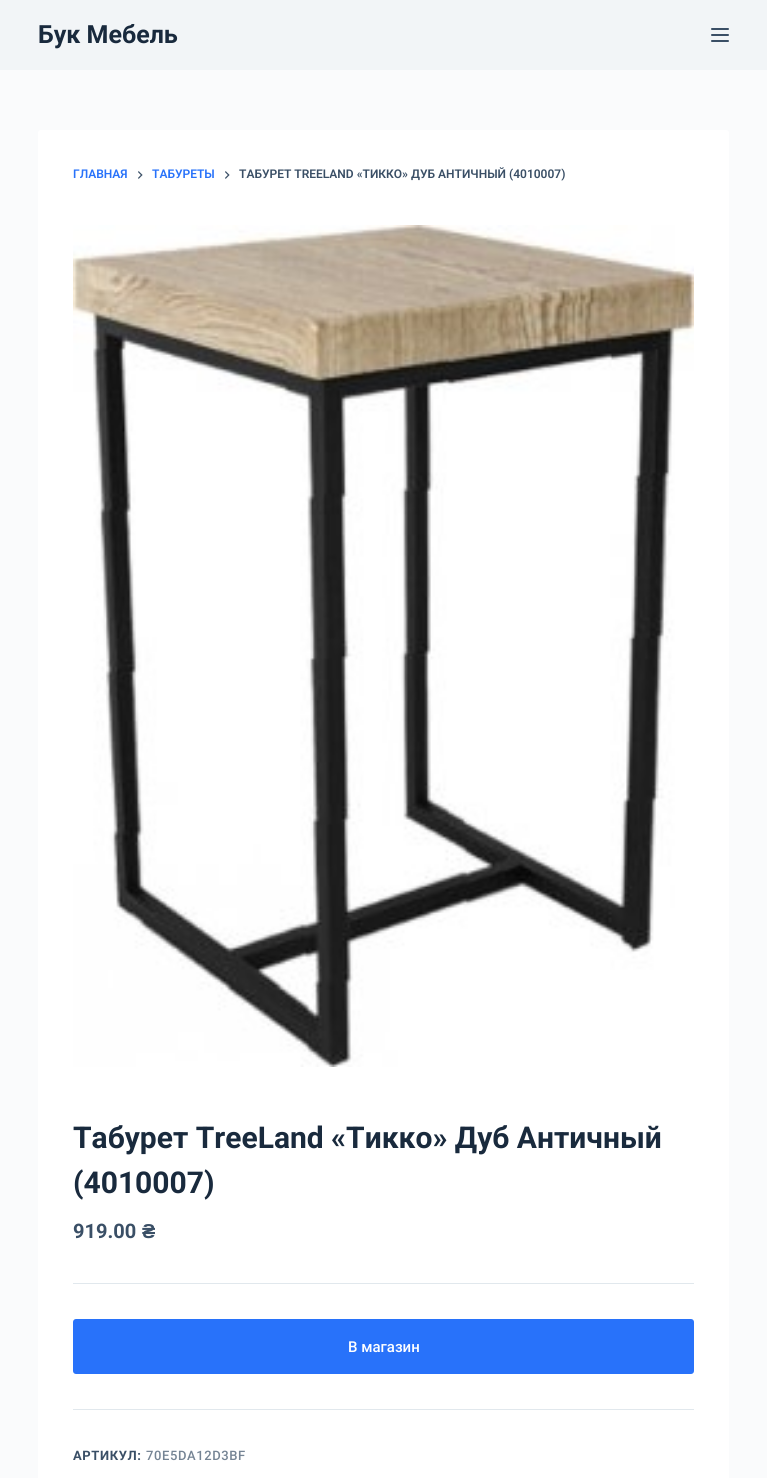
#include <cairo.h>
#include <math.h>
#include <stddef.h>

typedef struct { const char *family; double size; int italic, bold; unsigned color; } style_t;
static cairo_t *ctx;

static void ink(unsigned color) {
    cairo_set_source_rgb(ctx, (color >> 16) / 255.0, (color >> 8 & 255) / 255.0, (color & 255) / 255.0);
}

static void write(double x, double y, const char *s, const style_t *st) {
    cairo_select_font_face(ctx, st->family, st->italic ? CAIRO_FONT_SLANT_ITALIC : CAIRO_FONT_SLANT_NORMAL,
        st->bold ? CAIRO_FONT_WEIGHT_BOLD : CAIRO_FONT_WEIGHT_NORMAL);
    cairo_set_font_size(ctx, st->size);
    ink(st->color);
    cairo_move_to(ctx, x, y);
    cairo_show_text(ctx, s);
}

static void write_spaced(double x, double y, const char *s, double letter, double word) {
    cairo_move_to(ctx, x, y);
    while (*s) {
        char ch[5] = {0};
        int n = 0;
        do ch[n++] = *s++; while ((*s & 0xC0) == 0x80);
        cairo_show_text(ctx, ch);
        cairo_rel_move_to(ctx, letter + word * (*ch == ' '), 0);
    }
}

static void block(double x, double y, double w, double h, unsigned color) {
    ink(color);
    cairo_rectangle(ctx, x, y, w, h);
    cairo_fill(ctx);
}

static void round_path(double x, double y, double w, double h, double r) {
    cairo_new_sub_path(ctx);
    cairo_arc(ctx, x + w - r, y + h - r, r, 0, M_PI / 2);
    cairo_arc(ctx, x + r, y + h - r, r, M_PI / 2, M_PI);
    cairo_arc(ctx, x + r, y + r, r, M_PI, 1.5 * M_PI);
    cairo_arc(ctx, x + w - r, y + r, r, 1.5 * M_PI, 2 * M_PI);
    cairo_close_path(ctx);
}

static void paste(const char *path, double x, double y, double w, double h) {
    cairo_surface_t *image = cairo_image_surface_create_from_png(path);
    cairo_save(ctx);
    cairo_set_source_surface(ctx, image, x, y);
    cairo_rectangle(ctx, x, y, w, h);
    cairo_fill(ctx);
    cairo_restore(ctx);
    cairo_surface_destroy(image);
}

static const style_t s1 = {"Roboto", 25, 0, 1, 0x192a3d};
static const style_t s2 = {"Roboto SemiBold", 12, 0, 0, 0x2872fa};
static const style_t s3 = {"Roboto SemiBold", 12, 0, 0, 0x3a4f66};
static const style_t s4 = {"Roboto", 30, 0, 1, 0x192a3d};
static const style_t s5 = {"Roboto", 20, 0, 1, 0x3a4f66};
static const style_t s6 = {"Liberation Sans", 20, 0, 1, 0x3a4f66};
static const style_t s7 = {"Roboto Medium", 15, 0, 0, 0xffffff};

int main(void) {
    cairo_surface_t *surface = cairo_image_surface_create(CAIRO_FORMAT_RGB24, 767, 1478);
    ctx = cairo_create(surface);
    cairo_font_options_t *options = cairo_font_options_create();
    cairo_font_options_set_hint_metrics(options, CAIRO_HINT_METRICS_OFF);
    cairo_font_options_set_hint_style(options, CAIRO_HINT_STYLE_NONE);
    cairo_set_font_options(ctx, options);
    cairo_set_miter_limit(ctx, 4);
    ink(0xfafbfc);
    cairo_paint(ctx);
    block(0, 0, 767, 70, 0xf2f5f7);
    write(38, 43, "Бук Мебель", &s1);
    ink(0x3a4f66);
    round_path(711, 28, 18, 2, 1);
    cairo_fill(ctx);
    round_path(711, 34, 18, 2, 1);
    cairo_fill(ctx);
    round_path(711, 40, 18, 2, 1);
    cairo_fill(ctx);
    ink(0xffffff);
    round_path(38, 130, 691, 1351, 3);
    cairo_fill(ctx);
    write(73, 178, "ГЛАВНАЯ", &s2);
    paste("pic1.png", 138, 171, 5, 8);
    write(152, 178, "ТАБУРЕТЫ", &s2);
    paste("pic1.png", 225, 171, 5, 8);
    write(239, 178, "ТАБУРЕТ TREELAND «ТИККО» ДУБ АНТИЧНЫЙ (4010007)", &s3);
    paste("pic2.png", 73, 225, 621, 842);
    write(73, 1148, "Табурет TreeLand «Тикко» Дуб Античный", &s4);
    write(73, 1193, "(4010007)", &s4);
    write(73, 1238, "919.00", &s5);
    write(142, 1238, "₴", &s6);
    block(73, 1283, 621, 1, 0xe1e8ed);
    ink(0x2872fa);
    round_path(73, 1319, 621, 55, 3);
    cairo_fill(ctx);
    write(348, 1352, "В магазин", &s7);
    block(73, 1409, 621, 1, 0xe1e8ed);
    cairo_select_font_face(ctx, "Roboto", CAIRO_FONT_SLANT_NORMAL, CAIRO_FONT_WEIGHT_BOLD);
    cairo_set_font_size(ctx, 13);
    ink(0x3a4f66);
    write_spaced(73, 1460, "АРТИКУЛ:", 0.6, 0);
    cairo_select_font_face(ctx, "Roboto Medium", CAIRO_FONT_SLANT_NORMAL, CAIRO_FONT_WEIGHT_NORMAL);
    ink(0x758494);
    write_spaced(146, 1460, "70E5DA12D3BF", 0.6, 0);
    cairo_surface_write_to_png(surface, "screenshot.png");
    cairo_font_options_destroy(options);
    cairo_destroy(ctx);
    cairo_surface_destroy(surface);
    return 0;
}
